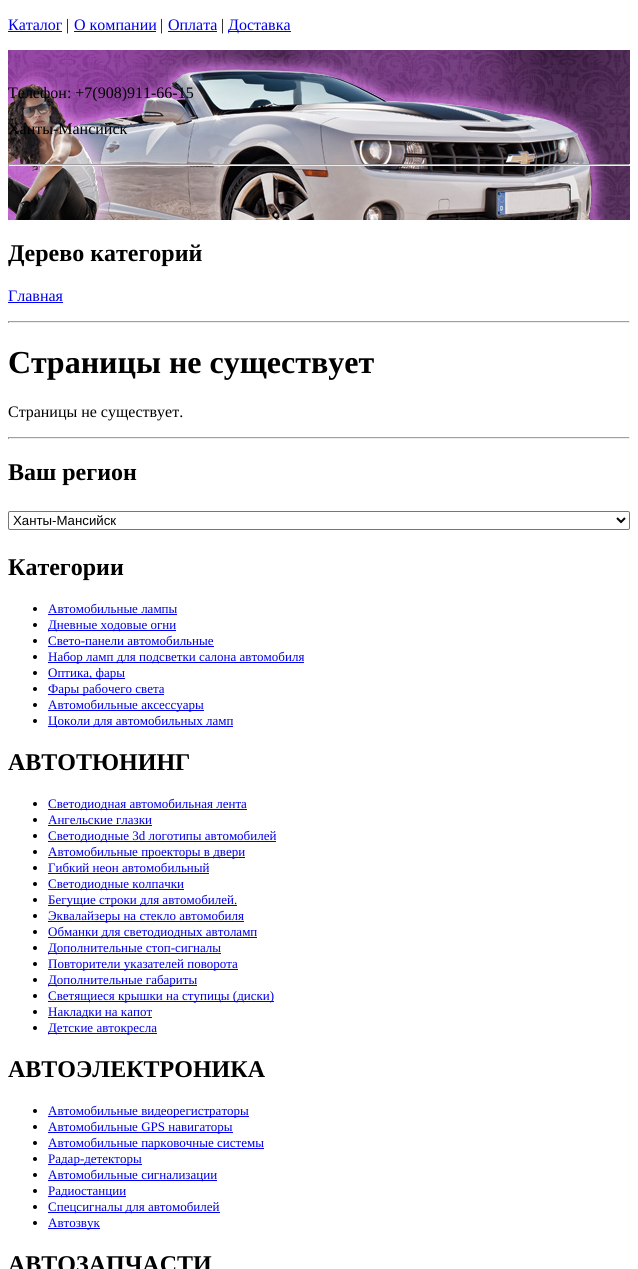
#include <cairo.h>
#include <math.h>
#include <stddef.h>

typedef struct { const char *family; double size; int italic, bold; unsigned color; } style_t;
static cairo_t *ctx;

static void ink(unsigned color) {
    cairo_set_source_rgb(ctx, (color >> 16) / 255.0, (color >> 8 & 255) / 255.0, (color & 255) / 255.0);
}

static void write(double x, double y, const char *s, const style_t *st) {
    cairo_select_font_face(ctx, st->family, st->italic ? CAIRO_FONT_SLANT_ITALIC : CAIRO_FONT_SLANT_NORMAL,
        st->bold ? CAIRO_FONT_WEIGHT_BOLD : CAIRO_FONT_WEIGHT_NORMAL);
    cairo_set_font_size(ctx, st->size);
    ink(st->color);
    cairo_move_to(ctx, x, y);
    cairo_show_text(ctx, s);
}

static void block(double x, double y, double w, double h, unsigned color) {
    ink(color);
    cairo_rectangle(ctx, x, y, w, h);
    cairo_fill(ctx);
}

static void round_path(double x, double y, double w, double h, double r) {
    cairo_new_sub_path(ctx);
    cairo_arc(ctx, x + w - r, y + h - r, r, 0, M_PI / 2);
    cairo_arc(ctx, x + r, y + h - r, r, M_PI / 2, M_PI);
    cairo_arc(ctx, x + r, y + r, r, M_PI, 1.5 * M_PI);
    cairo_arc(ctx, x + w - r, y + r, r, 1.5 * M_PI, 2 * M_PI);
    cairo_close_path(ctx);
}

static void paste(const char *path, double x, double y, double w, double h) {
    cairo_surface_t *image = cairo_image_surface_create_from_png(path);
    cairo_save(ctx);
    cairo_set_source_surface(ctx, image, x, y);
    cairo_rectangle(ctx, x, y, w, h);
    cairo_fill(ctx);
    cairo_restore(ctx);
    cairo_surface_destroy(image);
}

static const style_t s1 = {"Liberation Serif", 16, 0, 0, 0x0000ee};
static const style_t s2 = {"Liberation Serif", 16, 0, 0, 0x000000};
static const style_t s3 = {"Liberation Serif", 24, 0, 1, 0x000000};
static const style_t s4 = {"Liberation Serif", 32, 0, 1, 0x000000};
static const style_t s5 = {"Liberation Sans", 13.25, 0, 0, 0x000000};
static const style_t s6 = {"Liberation Serif", 13, 0, 0, 0x0000ee};

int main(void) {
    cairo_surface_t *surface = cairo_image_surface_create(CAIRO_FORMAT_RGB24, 638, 1269);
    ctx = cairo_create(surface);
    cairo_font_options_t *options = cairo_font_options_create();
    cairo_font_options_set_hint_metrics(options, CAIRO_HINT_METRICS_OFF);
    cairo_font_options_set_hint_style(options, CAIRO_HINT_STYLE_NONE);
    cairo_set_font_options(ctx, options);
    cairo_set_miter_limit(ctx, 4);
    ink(0xffffff);
    cairo_paint(ctx);
    write(8, 30, "Каталог", &s1);
    block(8, 31, 54, 1, 0x0000ee);
    write(66, 30, "|", &s2);
    write(74, 30, "О компании", &s1);
    block(74, 31, 82, 1, 0x0000ee);
    write(160, 30, "|", &s2);
    write(168, 30, "Оплата", &s1);
    block(168, 31, 49, 1, 0x0000ee);
    write(221, 30, "|", &s2);
    block(228, 31, 63, 1, 0x0000ee);
    write(228, 30, "Доставка", &s1);
    paste("pic1.png", 8, 50, 622, 170);
    write(8, 98, "Телефон: +7(908)911-66-15", &s2);
    write(8, 134, "Ханты-Мансийск", &s2);
    block(8, 164, 622, 1, 0x9f9f9f);
    block(629, 164, 1, 2, 0xeeeeee);
    block(8, 165, 622, 1, 0xeeeeee);
    block(8, 164, 1, 2, 0x9f9f9f);
    write(8, 261, "Дерево категорий", &s3);
    write(8, 301, "Главная", &s1);
    block(8, 302, 55, 1, 0x0000ee);
    block(8, 321, 622, 1, 0x9f9f9f);
    block(629, 321, 1, 2, 0xeeeeee);
    block(8, 322, 622, 1, 0xeeeeee);
    block(8, 321, 1, 2, 0x9f9f9f);
    write(8, 373, "Страницы не существует", &s4);
    write(8, 417, "Страницы не существует.", &s2);
    block(8, 437, 622, 1, 0x9f9f9f);
    block(629, 437, 1, 2, 0xeeeeee);
    block(8, 438, 622, 1, 0xeeeeee);
    block(8, 437, 1, 2, 0x9f9f9f);
    write(8, 480, "Ваш регион", &s3);
    round_path(8.5, 511.5, 621, 18, 1.5);
    ink(0x767676);
    cairo_set_line_width(ctx, 1);
    cairo_stroke(ctx);
    cairo_new_path(ctx);
    cairo_move_to(ctx, 617, 518);
    cairo_line_to(ctx, 621, 522);
    cairo_line_to(ctx, 625, 518);
    ink(0x000000);
    cairo_set_line_width(ctx, 2);
    cairo_stroke(ctx);
    write(13, 525, "Ханты-Мансийск", &s5);
    write(8, 575, "Категории", &s3);
    cairo_new_path(ctx);
    cairo_arc(ctx, 35, 609, 2, 0, 2 * M_PI);
    cairo_fill(ctx);
    write(48, 613, "Автомобильные лампы", &s6);
    block(48, 614, 129, 1, 0x0000ee);
    ink(0x000000);
    cairo_new_path(ctx);
    cairo_arc(ctx, 35, 625, 2, 0, 2 * M_PI);
    cairo_fill(ctx);
    block(48, 630, 128, 1, 0x0000ee);
    write(48, 629, "Дневные ходовые огни", &s6);
    ink(0x000000);
    cairo_new_path(ctx);
    cairo_arc(ctx, 35, 641, 2, 0, 2 * M_PI);
    cairo_fill(ctx);
    write(48, 645, "Свето-панели автомобильные", &s6);
    block(48, 646, 166, 1, 0x0000ee);
    ink(0x000000);
    cairo_new_path(ctx);
    cairo_arc(ctx, 35, 657, 2, 0, 2 * M_PI);
    cairo_fill(ctx);
    block(48, 662, 256, 1, 0x0000ee);
    write(48, 661, "Набор ламп для подсветки салона автомобиля", &s6);
    ink(0x000000);
    cairo_new_path(ctx);
    cairo_arc(ctx, 35, 673, 2, 0, 2 * M_PI);
    cairo_fill(ctx);
    block(48, 678, 77, 1, 0x0000ee);
    write(48, 677, "Оптика, фары", &s6);
    ink(0x000000);
    cairo_new_path(ctx);
    cairo_arc(ctx, 35, 689, 2, 0, 2 * M_PI);
    cairo_fill(ctx);
    block(48, 694, 116, 1, 0x0000ee);
    write(48, 693, "Фары рабочего света", &s6);
    ink(0x000000);
    cairo_new_path(ctx);
    cairo_arc(ctx, 35, 705, 2, 0, 2 * M_PI);
    cairo_fill(ctx);
    block(48, 710, 156, 1, 0x0000ee);
    write(48, 709, "Автомобильные аксессуары", &s6);
    ink(0x000000);
    cairo_new_path(ctx);
    cairo_arc(ctx, 35, 721, 2, 0, 2 * M_PI);
    cairo_fill(ctx);
    block(48, 726, 185, 1, 0x0000ee);
    write(48, 725, "Цоколи для автомобильных ламп", &s6);
    write(8, 770, "АВТОТЮНИНГ", &s3);
    cairo_new_path(ctx);
    cairo_arc(ctx, 35, 804, 2, 0, 2 * M_PI);
    cairo_fill(ctx);
    block(48, 809, 199, 1, 0x0000ee);
    write(48, 808, "Светодиодная автомобильная лента", &s6);
    ink(0x000000);
    cairo_new_path(ctx);
    cairo_arc(ctx, 35, 820, 2, 0, 2 * M_PI);
    cairo_fill(ctx);
    write(48, 824, "Ангельские глазки", &s6);
    block(48, 825, 104, 1, 0x0000ee);
    ink(0x000000);
    cairo_new_path(ctx);
    cairo_arc(ctx, 35, 836, 2, 0, 2 * M_PI);
    cairo_fill(ctx);
    block(48, 841, 228, 1, 0x0000ee);
    write(48, 840, "Светодиодные 3d логотипы автомобилей", &s6);
    ink(0x000000);
    cairo_new_path(ctx);
    cairo_arc(ctx, 35, 852, 2, 0, 2 * M_PI);
    cairo_fill(ctx);
    block(48, 857, 197, 1, 0x0000ee);
    write(48, 856, "Автомобильные проекторы в двери", &s6);
    ink(0x000000);
    cairo_new_path(ctx);
    cairo_arc(ctx, 35, 868, 2, 0, 2 * M_PI);
    cairo_fill(ctx);
    write(48, 872, "Гибкий неон автомобильный", &s6);
    block(48, 873, 161, 1, 0x0000ee);
    ink(0x000000);
    cairo_new_path(ctx);
    cairo_arc(ctx, 35, 884, 2, 0, 2 * M_PI);
    cairo_fill(ctx);
    block(48, 889, 136, 1, 0x0000ee);
    write(48, 888, "Светодиодные колпачки", &s6);
    ink(0x000000);
    cairo_new_path(ctx);
    cairo_arc(ctx, 35, 900, 2, 0, 2 * M_PI);
    cairo_fill(ctx);
    block(48, 905, 189, 1, 0x0000ee);
    write(48, 904, "Бегущие строки для автомобилей.", &s6);
    ink(0x000000);
    cairo_new_path(ctx);
    cairo_arc(ctx, 35, 916, 2, 0, 2 * M_PI);
    cairo_fill(ctx);
    block(48, 921, 196, 1, 0x0000ee);
    write(48, 920, "Эквалайзеры на стекло автомобиля", &s6);
    ink(0x000000);
    cairo_new_path(ctx);
    cairo_arc(ctx, 35, 932, 2, 0, 2 * M_PI);
    cairo_fill(ctx);
    block(48, 937, 209, 1, 0x0000ee);
    write(48, 936, "Обманки для светодиодных автоламп", &s6);
    ink(0x000000);
    cairo_new_path(ctx);
    cairo_arc(ctx, 35, 948, 2, 0, 2 * M_PI);
    cairo_fill(ctx);
    block(48, 953, 173, 1, 0x0000ee);
    write(48, 952, "Дополнительные стоп-сигналы", &s6);
    ink(0x000000);
    cairo_new_path(ctx);
    cairo_arc(ctx, 35, 964, 2, 0, 2 * M_PI);
    cairo_fill(ctx);
    block(48, 969, 190, 1, 0x0000ee);
    write(48, 968, "Повторители указателей поворота", &s6);
    ink(0x000000);
    cairo_new_path(ctx);
    cairo_arc(ctx, 35, 980, 2, 0, 2 * M_PI);
    cairo_fill(ctx);
    block(48, 985, 149, 1, 0x0000ee);
    write(48, 984, "Дополнительные габариты", &s6);
    ink(0x000000);
    cairo_new_path(ctx);
    cairo_arc(ctx, 35, 996, 2, 0, 2 * M_PI);
    cairo_fill(ctx);
    block(48, 1001, 226, 1, 0x0000ee);
    write(48, 1000, "Светящиеся крышки на ступицы (диски)", &s6);
    ink(0x000000);
    cairo_new_path(ctx);
    cairo_arc(ctx, 35, 1012, 2, 0, 2 * M_PI);
    cairo_fill(ctx);
    block(48, 1017, 104, 1, 0x0000ee);
    write(48, 1016, "Накладки на капот", &s6);
    ink(0x000000);
    cairo_new_path(ctx);
    cairo_arc(ctx, 35, 1028, 2, 0, 2 * M_PI);
    cairo_fill(ctx);
    block(48, 1033, 109, 1, 0x0000ee);
    write(48, 1032, "Детские автокресла", &s6);
    write(8, 1077, "АВТОЭЛЕКТРОНИКА", &s3);
    cairo_new_path(ctx);
    cairo_arc(ctx, 35, 1111, 2, 0, 2 * M_PI);
    cairo_fill(ctx);
    block(48, 1116, 201, 1, 0x0000ee);
    write(48, 1115, "Автомобильные видеорегистраторы", &s6);
    ink(0x000000);
    cairo_new_path(ctx);
    cairo_arc(ctx, 35, 1127, 2, 0, 2 * M_PI);
    cairo_fill(ctx);
    block(48, 1132, 185, 1, 0x0000ee);
    write(48, 1131, "Автомобильные GPS навигаторы", &s6);
    ink(0x000000);
    cairo_new_path(ctx);
    cairo_arc(ctx, 35, 1143, 2, 0, 2 * M_PI);
    cairo_fill(ctx);
    block(48, 1148, 216, 1, 0x0000ee);
    write(48, 1147, "Автомобильные парковочные системы", &s6);
    ink(0x000000);
    cairo_new_path(ctx);
    cairo_arc(ctx, 35, 1159, 2, 0, 2 * M_PI);
    cairo_fill(ctx);
    block(48, 1164, 94, 1, 0x0000ee);
    write(48, 1163, "Радар-детекторы", &s6);
    ink(0x000000);
    cairo_new_path(ctx);
    cairo_arc(ctx, 35, 1175, 2, 0, 2 * M_PI);
    cairo_fill(ctx);
    block(48, 1180, 169, 1, 0x0000ee);
    write(48, 1179, "Автомобильные сигнализации", &s6);
    ink(0x000000);
    cairo_new_path(ctx);
    cairo_arc(ctx, 35, 1191, 2, 0, 2 * M_PI);
    cairo_fill(ctx);
    block(48, 1196, 78, 1, 0x0000ee);
    write(48, 1195, "Радиостанции", &s6);
    ink(0x000000);
    cairo_new_path(ctx);
    cairo_arc(ctx, 35, 1207, 2, 0, 2 * M_PI);
    cairo_fill(ctx);
    block(48, 1212, 172, 1, 0x0000ee);
    write(48, 1211, "Спецсигналы для автомобилей", &s6);
    ink(0x000000);
    cairo_new_path(ctx);
    cairo_arc(ctx, 35, 1223, 2, 0, 2 * M_PI);
    cairo_fill(ctx);
    block(48, 1228, 52, 1, 0x0000ee);
    write(48, 1227, "Автозвук", &s6);
    write(8, 1272, "АВТОЗАПЧАСТИ", &s3);
    cairo_surface_write_to_png(surface, "screenshot.png");
    cairo_font_options_destroy(options);
    cairo_destroy(ctx);
    cairo_surface_destroy(surface);
    return 0;
}
